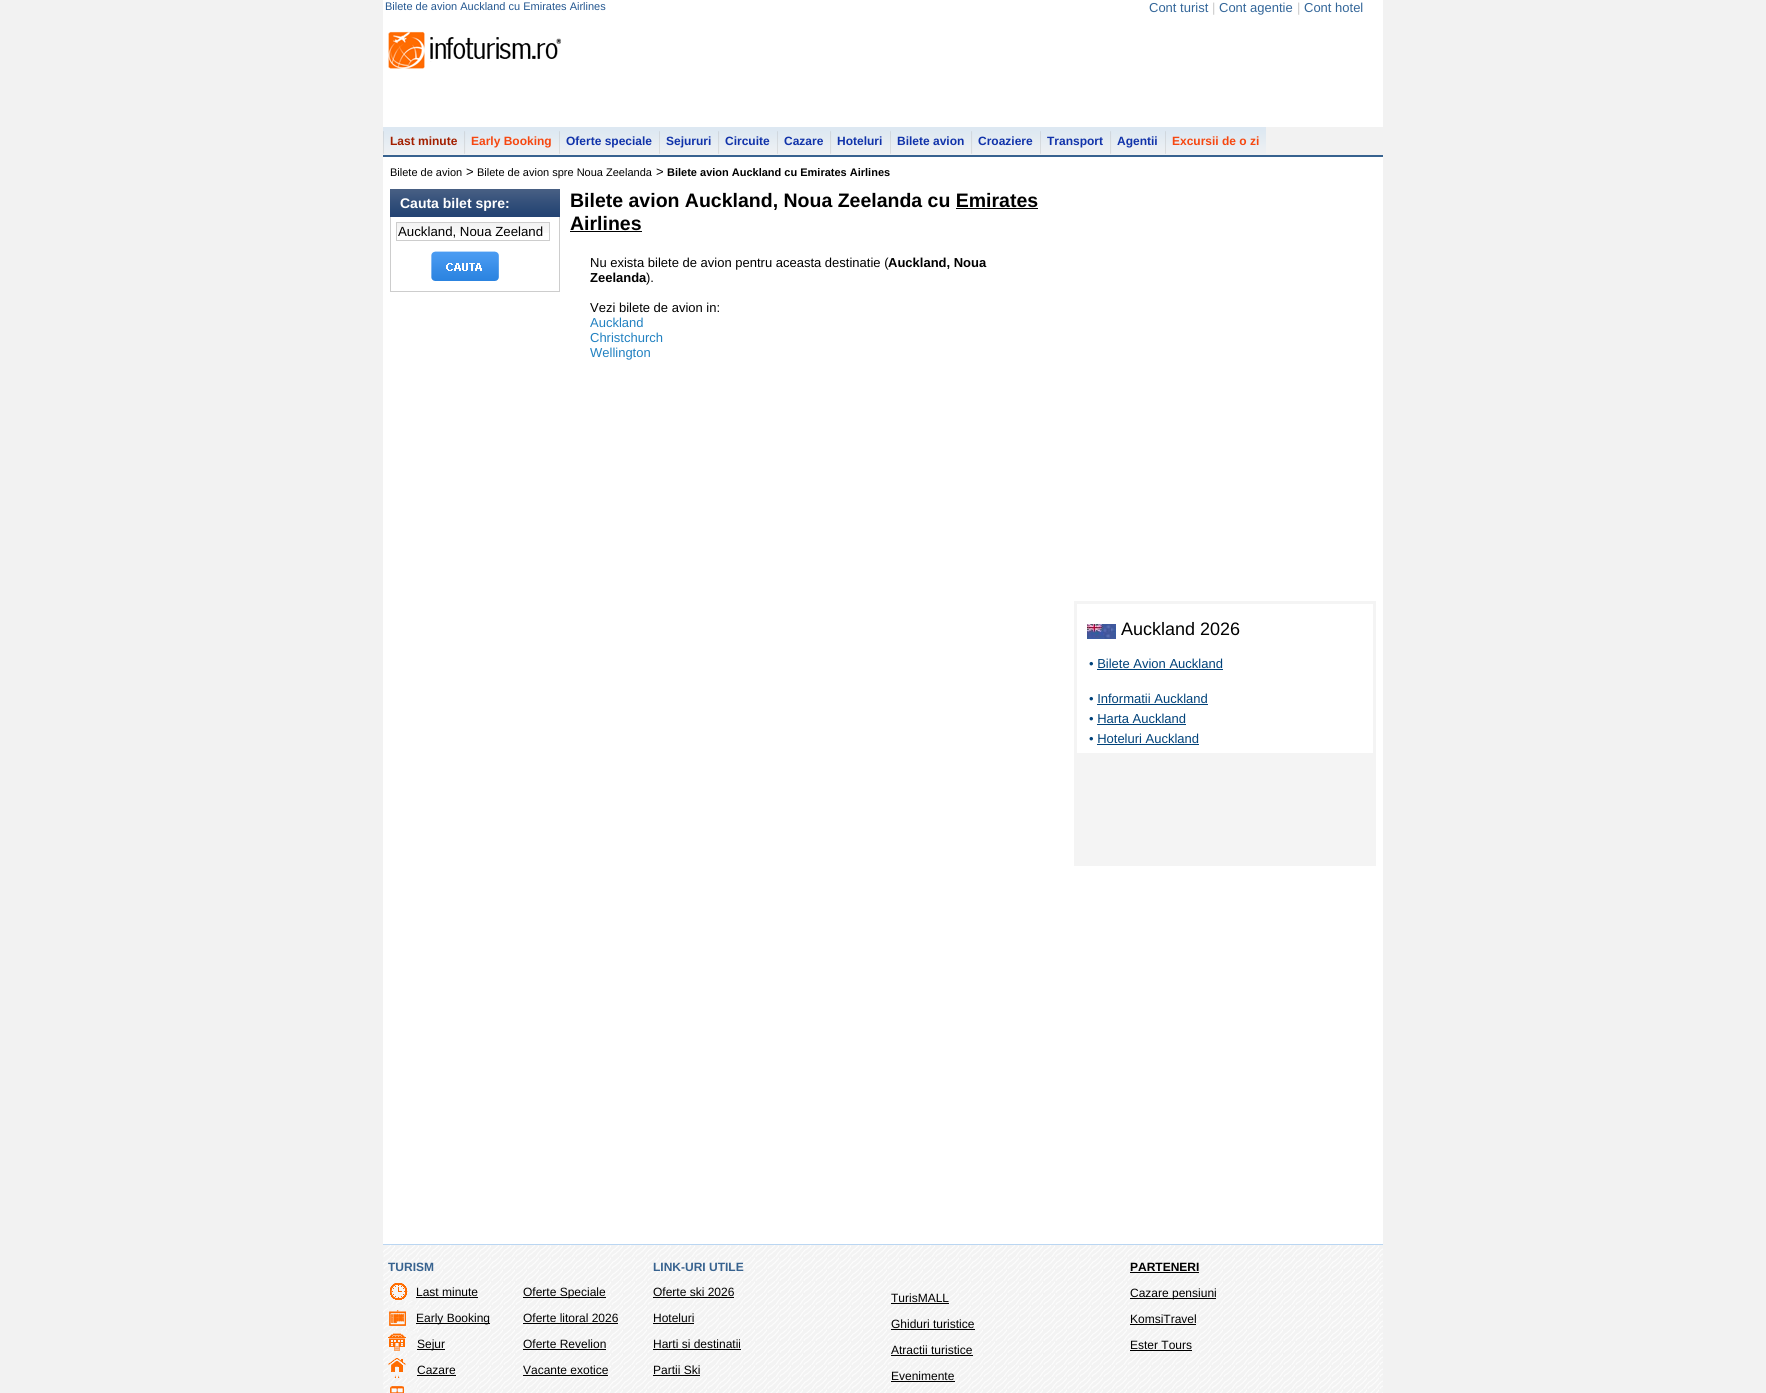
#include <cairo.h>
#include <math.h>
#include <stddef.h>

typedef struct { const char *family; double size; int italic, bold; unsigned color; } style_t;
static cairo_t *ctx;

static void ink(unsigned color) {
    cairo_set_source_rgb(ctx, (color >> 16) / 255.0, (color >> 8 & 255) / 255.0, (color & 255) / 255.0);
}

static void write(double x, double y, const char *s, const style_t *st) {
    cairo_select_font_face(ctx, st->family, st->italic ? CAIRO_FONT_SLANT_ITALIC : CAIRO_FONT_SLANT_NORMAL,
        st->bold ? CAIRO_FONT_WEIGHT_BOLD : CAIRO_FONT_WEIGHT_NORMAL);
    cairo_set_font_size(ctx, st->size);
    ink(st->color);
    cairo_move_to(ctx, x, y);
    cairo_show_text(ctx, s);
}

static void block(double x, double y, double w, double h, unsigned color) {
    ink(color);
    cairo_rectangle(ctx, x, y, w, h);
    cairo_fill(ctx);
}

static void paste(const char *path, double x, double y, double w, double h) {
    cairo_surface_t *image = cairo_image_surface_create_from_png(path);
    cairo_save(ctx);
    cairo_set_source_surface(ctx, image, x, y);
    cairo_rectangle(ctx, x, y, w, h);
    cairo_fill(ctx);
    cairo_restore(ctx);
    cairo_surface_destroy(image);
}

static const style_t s1 = {"Liberation Sans", 11, 0, 0, 0x245790};
static const style_t s2 = {"Liberation Sans", 13, 0, 0, 0x336699};
static const style_t s3 = {"Liberation Sans", 13, 0, 0, 0xcacaca};
static const style_t s4 = {"Liberation Sans", 12, 0, 1, 0xa31f00};
static const style_t s5 = {"Liberation Sans", 12, 0, 1, 0xf64710};
static const style_t s6 = {"Liberation Sans", 12, 0, 1, 0x1133aa};
static const style_t s7 = {"Liberation Sans", 11, 0, 0, 0x000000};
static const style_t s8 = {"Liberation Sans", 13, 0, 0, 0x000000};
static const style_t s9 = {"Liberation Sans", 11, 0, 1, 0x000000};
static const style_t s10 = {"Liberation Sans", 14, 0, 1, 0xffffff};
static const style_t s11 = {"Liberation Sans", 13.25, 0, 0, 0x000000};
static const style_t s12 = {"Liberation Sans", 19.5, 0, 1, 0x000000};
static const style_t s13 = {"Liberation Sans", 13, 0, 1, 0x000000};
static const style_t s14 = {"Liberation Sans", 13, 0, 0, 0x2181c1};
static const style_t s15 = {"Liberation Sans", 18, 0, 0, 0x000000};
static const style_t s16 = {"Liberation Sans", 13, 0, 0, 0x00427a};
static const style_t s17 = {"Liberation Sans", 12, 0, 1, 0x37628f};
static const style_t s18 = {"Liberation Sans", 12, 0, 0, 0x000000};
static const style_t s19 = {"Liberation Sans", 12, 0, 1, 0x000000};

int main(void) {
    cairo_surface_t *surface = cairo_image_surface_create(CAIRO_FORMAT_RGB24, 1766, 1393);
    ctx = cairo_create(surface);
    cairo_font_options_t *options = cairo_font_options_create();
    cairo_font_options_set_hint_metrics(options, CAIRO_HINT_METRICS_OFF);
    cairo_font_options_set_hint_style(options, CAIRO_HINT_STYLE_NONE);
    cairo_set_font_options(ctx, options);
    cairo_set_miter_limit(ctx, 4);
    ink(0xf2f2f2);
    cairo_paint(ctx);
    block(383, 0, 1000, 127, 0xffffff);
    write(385, 10, "Bilete de avion Auckland cu Emirates Airlines", &s1);
    write(1149, 12, "Cont turist", &s2);
    write(1212, 12, "|", &s3);
    write(1219, 12, "Cont agentie", &s2);
    write(1297, 12, "|", &s3);
    write(1304, 12, "Cont hotel", &s2);
    paste("pic1.png", 388, 31, 174, 38);
    paste("pic2.png", 383, 127, 81, 27);
    write(390, 145, "Last minute", &s4);
    paste("pic3.png", 464, 127, 95, 27);
    write(471, 145, "Early Booking", &s5);
    paste("pic4.png", 559, 127, 100, 27);
    write(566, 145, "Oferte speciale", &s6);
    paste("pic5.png", 659, 127, 59, 27);
    write(666, 145, "Sejururi", &s6);
    paste("pic6.png", 718, 127, 59, 27);
    write(725, 145, "Circuite", &s6);
    paste("pic7.png", 777, 127, 53, 27);
    write(784, 145, "Cazare", &s6);
    paste("pic8.png", 830, 127, 60, 27);
    write(837, 145, "Hoteluri", &s6);
    paste("pic2.png", 890, 127, 81, 27);
    write(897, 145, "Bilete avion", &s6);
    paste("pic9.png", 971, 127, 69, 27);
    write(978, 145, "Croaziere", &s6);
    paste("pic10.png", 1040, 127, 70, 27);
    write(1047, 145, "Transport", &s6);
    paste("pic11.png", 1110, 127, 55, 27);
    write(1117, 145, "Agentii", &s6);
    paste("pic12.png", 1165, 127, 101, 27);
    write(1172, 145, "Excursii de o zi", &s5);
    block(383, 157, 1000, 1087, 0xffffff);
    block(383, 155, 1000, 2, 0x37628f);
    write(390, 176, "Bilete de avion", &s7);
    write(466, 176, ">", &s8);
    write(477, 176, "Bilete de avion spre Noua Zeelanda", &s7);
    write(656, 176, ">", &s8);
    write(667, 176, "Bilete avion Auckland cu Emirates Airlines", &s9);
    paste("pic13.png", 390, 189, 170, 28);
    write(400, 208, "Cauta bilet spre:", &s10);
    block(559, 217, 1, 75, 0xcdcdcd);
    block(390, 291, 170, 1, 0xcdcdcd);
    block(390, 217, 1, 75, 0xcdcdcd);
    paste("pic14.png", 397, 223, 152, 10);
    cairo_rectangle(ctx, 396.5, 222.5, 153, 18);
    cairo_set_line_width(ctx, 1);
    cairo_stroke(ctx);
    write(398, 236, "Auckland, Noua Zeeland", &s11);
    paste("pic15.png", 431, 251, 68, 30);
    write(570, 207, "Bilete avion Auckland, Noua Zeelanda cu Emirates", &s12);
    write(570, 230, "Airlines", &s12);
    block(956, 208, 82, 1, 0x000000);
    block(570, 231, 72, 1, 0x000000);
    write(590, 267, "Nu exista bilete de avion pentru aceasta destinatie (", &s8);
    write(888, 267, "Auckland, Noua", &s13);
    write(590, 282, "Zeelanda", &s13);
    write(646, 282, ").", &s8);
    write(590, 312, "Vezi bilete de avion in:", &s8);
    write(590, 327, "Auckland", &s14);
    write(590, 342, "Christchurch", &s14);
    write(590, 357, "Wellington", &s14);
    cairo_rectangle(ctx, 1075.5, 602.5, 299, 262);
    ink(0xf4f4f4);
    cairo_set_line_width(ctx, 3);
    cairo_stroke(ctx);
    paste("pic16.png", 1087, 624, 29, 15);
    write(1121, 635, "Auckland 2026", &s15);
    write(1089, 668, "• Bilete Avion Auckland", &s16);
    block(1097, 669, 126, 1, 0x00427a);
    write(1089, 703, "• Informatii Auckland", &s16);
    block(1097, 704, 111, 1, 0x00427a);
    write(1089, 723, "• Harta Auckland", &s16);
    block(1097, 724, 89, 1, 0x00427a);
    write(1089, 743, "• Hoteluri Auckland", &s16);
    block(1097, 744, 102, 1, 0x00427a);
    block(1077, 753, 296, 110, 0xf4f4f4);
    paste("pic17.png", 383, 1245, 1000, 148);
    block(383, 1244, 1000, 1, 0xbad6f2);
    write(388, 1271, "TURISM", &s17);
    paste("pic18.png", 388, 1279, 28, 22);
    write(416, 1296, "Last minute", &s18);
    block(416, 1297, 62, 1, 0x000000);
    paste("pic19.png", 388, 1305, 28, 22);
    block(416, 1323, 74, 1, 0x000000);
    write(416, 1322, "Early Booking", &s18);
    paste("pic20.png", 388, 1331, 29, 20);
    block(417, 1349, 28, 1, 0x000000);
    write(417, 1348, "Sejur", &s18);
    paste("pic21.png", 388, 1357, 29, 21);
    write(417, 1374, "Cazare", &s18);
    block(417, 1375, 39, 1, 0x000000);
    paste("pic22.png", 388, 1383, 29, 10);
    block(523, 1297, 83, 1, 0x000000);
    write(523, 1296, "Oferte Speciale", &s18);
    write(523, 1322, "Oferte litoral 2026", &s18);
    block(523, 1323, 95, 1, 0x000000);
    write(523, 1348, "Oferte Revelion", &s18);
    block(523, 1349, 83, 1, 0x000000);
    write(523, 1374, "Vacante exotice", &s18);
    block(523, 1375, 85, 1, 0x000000);
    write(653, 1271, "LINK-URI UTILE", &s17);
    write(653, 1296, "Oferte ski 2026", &s18);
    block(653, 1297, 81, 1, 0x000000);
    write(653, 1322, "Hoteluri", &s18);
    block(653, 1323, 41, 1, 0x000000);
    write(653, 1348, "Harti si destinatii", &s18);
    block(653, 1349, 88, 1, 0x000000);
    write(653, 1374, "Partii Ski", &s18);
    block(653, 1375, 47, 1, 0x000000);
    write(891, 1302, "TurisMALL", &s18);
    block(891, 1303, 58, 1, 0x000000);
    write(891, 1328, "Ghiduri turistice", &s18);
    block(891, 1329, 84, 1, 0x000000);
    write(891, 1354, "Atractii turistice", &s18);
    block(891, 1355, 82, 1, 0x000000);
    write(891, 1380, "Evenimente", &s18);
    block(891, 1381, 64, 1, 0x000000);
    write(1130, 1271, "PARTENERI", &s19);
    block(1130, 1272, 69, 1, 0x000000);
    block(1130, 1298, 86, 1, 0x000000);
    write(1130, 1297, "Cazare pensiuni", &s18);
    write(1130, 1323, "KomsiTravel", &s18);
    block(1130, 1324, 66, 1, 0x000000);
    write(1130, 1349, "Ester Tours", &s18);
    block(1130, 1350, 62, 1, 0x000000);
    cairo_surface_write_to_png(surface, "screenshot.png");
    cairo_font_options_destroy(options);
    cairo_destroy(ctx);
    cairo_surface_destroy(surface);
    return 0;
}
